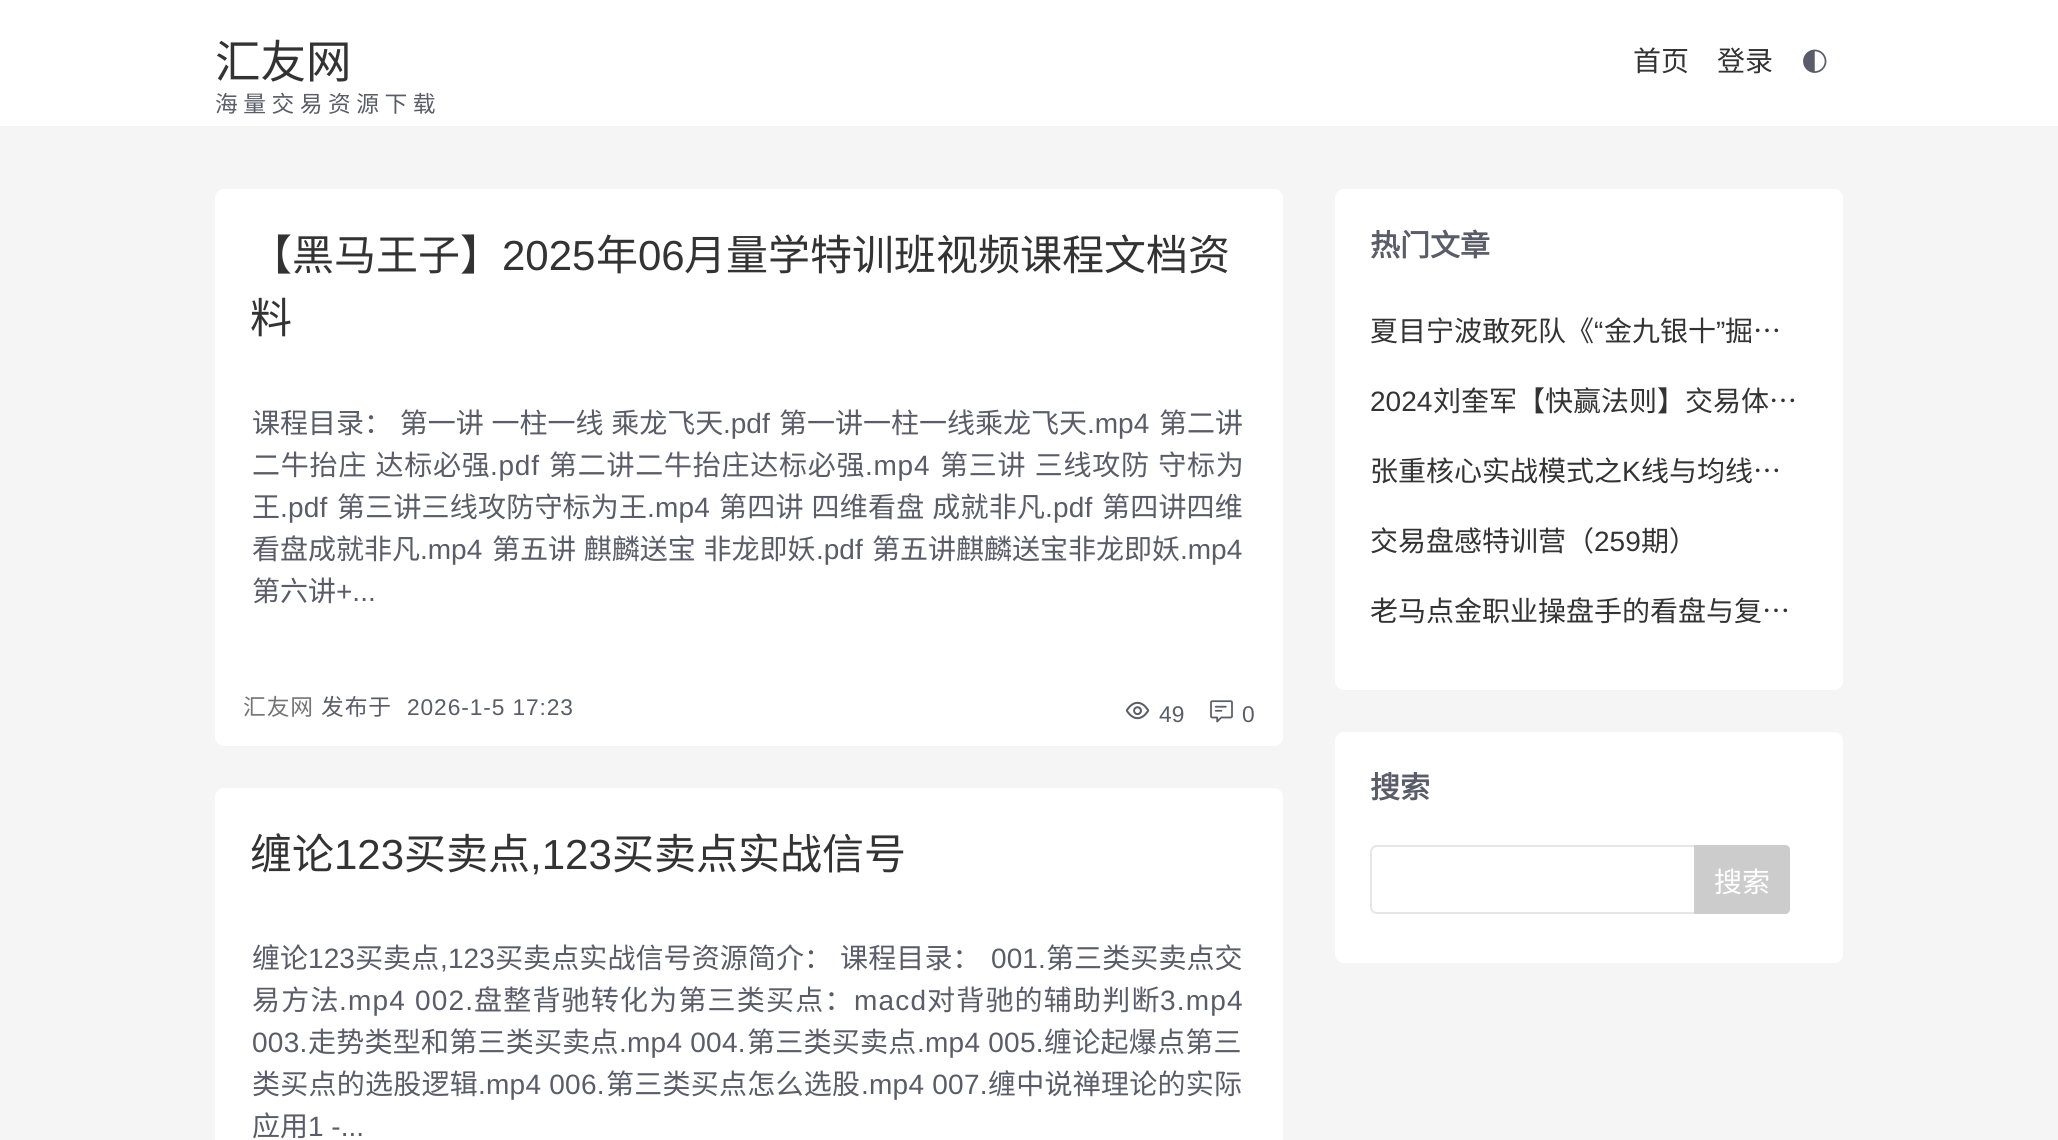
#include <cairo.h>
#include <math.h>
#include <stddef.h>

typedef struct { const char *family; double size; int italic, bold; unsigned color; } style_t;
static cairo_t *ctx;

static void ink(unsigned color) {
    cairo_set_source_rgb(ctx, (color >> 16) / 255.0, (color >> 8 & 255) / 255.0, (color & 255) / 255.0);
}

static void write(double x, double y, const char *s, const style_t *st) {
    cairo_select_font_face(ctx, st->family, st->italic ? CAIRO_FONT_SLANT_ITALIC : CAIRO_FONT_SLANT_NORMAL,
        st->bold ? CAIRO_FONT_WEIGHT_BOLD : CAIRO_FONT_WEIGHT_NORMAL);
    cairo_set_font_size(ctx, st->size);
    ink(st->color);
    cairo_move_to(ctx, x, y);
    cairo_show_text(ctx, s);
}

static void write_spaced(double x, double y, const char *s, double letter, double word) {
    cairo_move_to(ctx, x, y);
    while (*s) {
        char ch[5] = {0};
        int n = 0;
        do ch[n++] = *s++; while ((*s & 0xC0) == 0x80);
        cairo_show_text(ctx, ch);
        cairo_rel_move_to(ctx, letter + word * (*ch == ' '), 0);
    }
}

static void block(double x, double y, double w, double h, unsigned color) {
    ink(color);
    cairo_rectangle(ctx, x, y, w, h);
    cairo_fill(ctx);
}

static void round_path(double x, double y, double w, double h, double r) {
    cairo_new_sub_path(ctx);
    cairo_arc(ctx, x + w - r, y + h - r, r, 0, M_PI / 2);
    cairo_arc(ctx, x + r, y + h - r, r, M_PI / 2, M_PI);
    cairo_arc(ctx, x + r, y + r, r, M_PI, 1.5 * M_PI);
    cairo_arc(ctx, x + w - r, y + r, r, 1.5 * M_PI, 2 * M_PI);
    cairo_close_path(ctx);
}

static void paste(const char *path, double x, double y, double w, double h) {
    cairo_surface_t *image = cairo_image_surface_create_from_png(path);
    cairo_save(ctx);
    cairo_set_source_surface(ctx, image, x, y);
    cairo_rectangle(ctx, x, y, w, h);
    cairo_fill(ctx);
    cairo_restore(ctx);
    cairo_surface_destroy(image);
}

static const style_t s1 = {"Noto Sans CJK SC", 45.5, 0, 0, 0x333333};
static const style_t s2 = {"Noto Sans CJK SC", 28, 0, 0, 0x333333};
static const style_t s3 = {"Noto Sans CJK SC", 42, 0, 0, 0x333333};
static const style_t s4 = {"Liberation Sans", 42, 0, 0, 0x333333};
static const style_t s5 = {"Liberation Sans", 28, 0, 0, 0x5a5c69};
static const style_t s6 = {"Noto Sans CJK SC", 28, 0, 0, 0x5a5c69};
static const style_t s7 = {"Liberation Sans", 22.75, 0, 0, 0x5a5c69};
static const style_t s8 = {"Noto Sans CJK SC", 30, 0, 1, 0x5a5c69};
static const style_t s9 = {"Liberation Sans", 28, 0, 0, 0x333333};
static const style_t s10 = {"Noto Sans CJK SC", 28, 0, 0, 0xffffff};

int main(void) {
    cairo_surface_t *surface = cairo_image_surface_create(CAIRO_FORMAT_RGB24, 2058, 1140);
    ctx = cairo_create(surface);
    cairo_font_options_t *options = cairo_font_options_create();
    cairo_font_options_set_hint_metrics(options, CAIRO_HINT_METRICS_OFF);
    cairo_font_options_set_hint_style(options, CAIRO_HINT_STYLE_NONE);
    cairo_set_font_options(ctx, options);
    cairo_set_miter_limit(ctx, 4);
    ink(0xf5f5f6);
    cairo_paint(ctx);
    block(0, 0, 2058, 126, 0xffffff);
    write(215, 78, "汇友网", &s1);
    write(1633, 71, "首页", &s2);
    write(1717, 71, "登录", &s2);
    paste("pic1.png", 1803, 49, 24, 24);
    cairo_set_font_size(ctx, 22.75);
    ink(0x5a5c69);
    write_spaced(215, 112, "海量交易资源下载", 5.5, 0);
    ink(0xffffff);
    round_path(215, 189, 1068, 557, 9);
    cairo_fill(ctx);
    write(250, 270, "【黑马王子】", &s3);
    write(502, 270, "2025", &s4);
    write(596, 270, "年", &s3);
    write(638, 270, "06", &s4);
    write(684, 270, "月量学特训班视频课程文档资", &s3);
    write(250, 333, "料", &s3);
    cairo_set_font_size(ctx, 28);
    ink(0x5a5c69);
    write_spaced(252, 433, "课程目录： 第一讲 一柱一线 乘龙飞天", 0, 1.5);
    write(723, 433, ".pdf", &s5);
    write(779, 433, "第一讲一柱一线乘龙飞天", &s6);
    write(1087, 433, ".mp4", &s5);
    write(1159, 433, "第二讲", &s6);
    write_spaced(252, 475, "二牛抬庄 达标必强", 0.75, 1.5);
    cairo_select_font_face(ctx, "Liberation Sans", CAIRO_FONT_SLANT_NORMAL, CAIRO_FONT_WEIGHT_NORMAL);
    write_spaced(490, 475, ".pdf", 0.75, 0);
    cairo_select_font_face(ctx, "Noto Sans CJK SC", CAIRO_FONT_SLANT_NORMAL, CAIRO_FONT_WEIGHT_NORMAL);
    write_spaced(549, 475, "第二讲二牛抬庄达标必强", 0.75, 0);
    cairo_select_font_face(ctx, "Liberation Sans", CAIRO_FONT_SLANT_NORMAL, CAIRO_FONT_WEIGHT_NORMAL);
    write_spaced(865, 475, ".mp4", 0.75, 0);
    cairo_select_font_face(ctx, "Noto Sans CJK SC", CAIRO_FONT_SLANT_NORMAL, CAIRO_FONT_WEIGHT_NORMAL);
    write_spaced(940, 475, "第三讲 三线攻防 守标为", 0.75, 1.5);
    write_spaced(252, 517, "王", 0.2, 0);
    cairo_select_font_face(ctx, "Liberation Sans", CAIRO_FONT_SLANT_NORMAL, CAIRO_FONT_WEIGHT_NORMAL);
    write_spaced(280, 517, ".pdf", 0.2, 0);
    cairo_select_font_face(ctx, "Noto Sans CJK SC", CAIRO_FONT_SLANT_NORMAL, CAIRO_FONT_WEIGHT_NORMAL);
    write_spaced(337, 517, "第三讲三线攻防守标为王", 0.2, 0);
    cairo_select_font_face(ctx, "Liberation Sans", CAIRO_FONT_SLANT_NORMAL, CAIRO_FONT_WEIGHT_NORMAL);
    write_spaced(647, 517, ".mp4", 0.2, 0);
    cairo_select_font_face(ctx, "Noto Sans CJK SC", CAIRO_FONT_SLANT_NORMAL, CAIRO_FONT_WEIGHT_NORMAL);
    write_spaced(719, 517, "第四讲 四维看盘 成就非凡", 0.2, 1.5);
    cairo_select_font_face(ctx, "Liberation Sans", CAIRO_FONT_SLANT_NORMAL, CAIRO_FONT_WEIGHT_NORMAL);
    write_spaced(1045, 517, ".pdf", 0.2, 0);
    cairo_select_font_face(ctx, "Noto Sans CJK SC", CAIRO_FONT_SLANT_NORMAL, CAIRO_FONT_WEIGHT_NORMAL);
    write_spaced(1102, 517, "第四讲四维", 0.2, 0);
    write(252, 559, "看盘成就非凡", &s6);
    write(420, 559, ".mp4", &s5);
    cairo_select_font_face(ctx, "Noto Sans CJK SC", CAIRO_FONT_SLANT_NORMAL, CAIRO_FONT_WEIGHT_NORMAL);
    write_spaced(492, 559, "第五讲 麒麟送宝 非龙即妖", 0, 1.5);
    write(816, 559, ".pdf", &s5);
    write(872, 559, "第五讲麒麟送宝非龙即妖", &s6);
    write(1180, 559, ".mp4", &s5);
    write(252, 601, "第六讲", &s6);
    write(336, 601, "+...", &s5);
    cairo_select_font_face(ctx, "Noto Sans CJK SC", CAIRO_FONT_SLANT_NORMAL, CAIRO_FONT_WEIGHT_NORMAL);
    cairo_set_font_size(ctx, 22.75);
    ink(0x757575);
    write_spaced(243, 715, "汇友网", 0.9, 0);
    ink(0x5a5c69);
    write_spaced(321, 715, "发布于", 0.9, 0);
    cairo_select_font_face(ctx, "Liberation Sans", CAIRO_FONT_SLANT_NORMAL, CAIRO_FONT_WEIGHT_NORMAL);
    write_spaced(407, 715, "2026-1-5 17:23", 0.9, 0);
    paste("pic2.png", 1125, 701, 25, 19);
    write(1159, 722, "49", &s7);
    paste("pic3.png", 1210, 700, 23, 23);
    write(1242, 722, "0", &s7);
    ink(0xffffff);
    round_path(215, 788, 1068, 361, 9);
    cairo_fill(ctx);
    write(250, 869, "缠论", &s3);
    write(334, 869, "123", &s4);
    write(404, 869, "买卖点", &s3);
    write(530, 869, ",123", &s4);
    write(612, 869, "买卖点实战信号", &s3);
    cairo_set_font_size(ctx, 28);
    ink(0x5a5c69);
    write_spaced(252, 968, "缠论", 0.1, 0);
    cairo_select_font_face(ctx, "Liberation Sans", CAIRO_FONT_SLANT_NORMAL, CAIRO_FONT_WEIGHT_NORMAL);
    write_spaced(308, 968, "123", 0.1, 0);
    cairo_select_font_face(ctx, "Noto Sans CJK SC", CAIRO_FONT_SLANT_NORMAL, CAIRO_FONT_WEIGHT_NORMAL);
    write_spaced(355, 968, "买卖点", 0.1, 0);
    cairo_select_font_face(ctx, "Liberation Sans", CAIRO_FONT_SLANT_NORMAL, CAIRO_FONT_WEIGHT_NORMAL);
    write_spaced(440, 968, ",123", 0.1, 0);
    cairo_select_font_face(ctx, "Noto Sans CJK SC", CAIRO_FONT_SLANT_NORMAL, CAIRO_FONT_WEIGHT_NORMAL);
    write_spaced(495, 968, "买卖点实战信号资源简介： 课程目录：", 0.1, 1.5);
    cairo_select_font_face(ctx, "Liberation Sans", CAIRO_FONT_SLANT_NORMAL, CAIRO_FONT_WEIGHT_NORMAL);
    write_spaced(991, 968, "001.", 0.1, 0);
    cairo_select_font_face(ctx, "Noto Sans CJK SC", CAIRO_FONT_SLANT_NORMAL, CAIRO_FONT_WEIGHT_NORMAL);
    write_spaced(1046, 968, "第三类买卖点交", 0.1, 0);
    write_spaced(252, 1010, "易方法", 1.2, 0);
    cairo_select_font_face(ctx, "Liberation Sans", CAIRO_FONT_SLANT_NORMAL, CAIRO_FONT_WEIGHT_NORMAL);
    write_spaced(339, 1010, ".mp4 002.", 1.2, 0);
    cairo_select_font_face(ctx, "Noto Sans CJK SC", CAIRO_FONT_SLANT_NORMAL, CAIRO_FONT_WEIGHT_NORMAL);
    write_spaced(474, 1010, "盘整背驰转化为第三类买点：", 1.2, 0);
    cairo_select_font_face(ctx, "Liberation Sans", CAIRO_FONT_SLANT_NORMAL, CAIRO_FONT_WEIGHT_NORMAL);
    write_spaced(854, 1010, "macd", 1.2, 0);
    cairo_select_font_face(ctx, "Noto Sans CJK SC", CAIRO_FONT_SLANT_NORMAL, CAIRO_FONT_WEIGHT_NORMAL);
    write_spaced(927, 1010, "对背驰的辅助判断", 1.2, 0);
    cairo_select_font_face(ctx, "Liberation Sans", CAIRO_FONT_SLANT_NORMAL, CAIRO_FONT_WEIGHT_NORMAL);
    write_spaced(1160, 1010, "3.mp4", 1.2, 0);
    write_spaced(252, 1052, "003.", 0.25, 0);
    cairo_select_font_face(ctx, "Noto Sans CJK SC", CAIRO_FONT_SLANT_NORMAL, CAIRO_FONT_WEIGHT_NORMAL);
    write_spaced(308, 1052, "走势类型和第三类买卖点", 0.25, 0);
    cairo_select_font_face(ctx, "Liberation Sans", CAIRO_FONT_SLANT_NORMAL, CAIRO_FONT_WEIGHT_NORMAL);
    write_spaced(619, 1052, ".mp4 004.", 0.25, 0);
    cairo_select_font_face(ctx, "Noto Sans CJK SC", CAIRO_FONT_SLANT_NORMAL, CAIRO_FONT_WEIGHT_NORMAL);
    write_spaced(747, 1052, "第三类买卖点", 0.25, 0);
    cairo_select_font_face(ctx, "Liberation Sans", CAIRO_FONT_SLANT_NORMAL, CAIRO_FONT_WEIGHT_NORMAL);
    write_spaced(917, 1052, ".mp4 005.", 0.25, 0);
    cairo_select_font_face(ctx, "Noto Sans CJK SC", CAIRO_FONT_SLANT_NORMAL, CAIRO_FONT_WEIGHT_NORMAL);
    write_spaced(1044, 1052, "缠论起爆点第三", 0.25, 0);
    write_spaced(252, 1094, "类买点的选股逻辑", 0.25, 0);
    cairo_select_font_face(ctx, "Liberation Sans", CAIRO_FONT_SLANT_NORMAL, CAIRO_FONT_WEIGHT_NORMAL);
    write_spaced(478, 1094, ".mp4 006.", 0.25, 0);
    cairo_select_font_face(ctx, "Noto Sans CJK SC", CAIRO_FONT_SLANT_NORMAL, CAIRO_FONT_WEIGHT_NORMAL);
    write_spaced(606, 1094, "第三类买点怎么选股", 0.25, 0);
    cairo_select_font_face(ctx, "Liberation Sans", CAIRO_FONT_SLANT_NORMAL, CAIRO_FONT_WEIGHT_NORMAL);
    write_spaced(861, 1094, ".mp4 007.", 0.25, 0);
    cairo_select_font_face(ctx, "Noto Sans CJK SC", CAIRO_FONT_SLANT_NORMAL, CAIRO_FONT_WEIGHT_NORMAL);
    write_spaced(988, 1094, "缠中说禅理论的实际", 0.25, 0);
    write(252, 1136, "应用", &s6);
    write(308, 1136, "1 -...", &s5);
    ink(0xffffff);
    round_path(1335, 189, 508, 501, 9);
    cairo_fill(ctx);
    write(1370, 256, "热门文章", &s8);
    write(1370, 341, "夏目宁波敢死队《", &s2);
    write(1594, 341, "“", &s9);
    write(1604, 341, "金九银十", &s2);
    write(1716, 341, "”", &s9);
    write(1725, 341, "掘…", &s2);
    write(1370, 411, "2024", &s9);
    write(1433, 411, "刘奎军【快赢法则】交易体…", &s2);
    write(1370, 481, "张重核心实战模式之", &s2);
    write(1622, 481, "K", &s9);
    write(1641, 481, "线与均线…", &s2);
    write(1370, 551, "交易盘感特训营（", &s2);
    write(1594, 551, "259", &s9);
    write(1641, 551, "期）", &s2);
    write(1370, 621, "老马点金职业操盘手的看盘与复…", &s2);
    ink(0xffffff);
    round_path(1335, 732, 508, 231, 9);
    cairo_fill(ctx);
    write(1370, 798, "搜索", &s8);
    round_path(1371, 846, 348, 67, 6);
    ink(0xe6e6e6);
    cairo_stroke(ctx);
    ink(0xcccccc);
    cairo_new_path(ctx);
    cairo_move_to(ctx, 1694, 845);
    cairo_line_to(ctx, 1785, 845);
    cairo_curve_to(ctx, 1788, 845, 1790, 847, 1790, 850);
    cairo_line_to(ctx, 1790, 909);
    cairo_curve_to(ctx, 1790, 912, 1788, 914, 1785, 914);
    cairo_line_to(ctx, 1694, 914);
    cairo_close_path(ctx);
    cairo_fill(ctx);
    write(1714, 892, "搜索", &s10);
    cairo_surface_write_to_png(surface, "screenshot.png");
    cairo_font_options_destroy(options);
    cairo_destroy(ctx);
    cairo_surface_destroy(surface);
    return 0;
}
